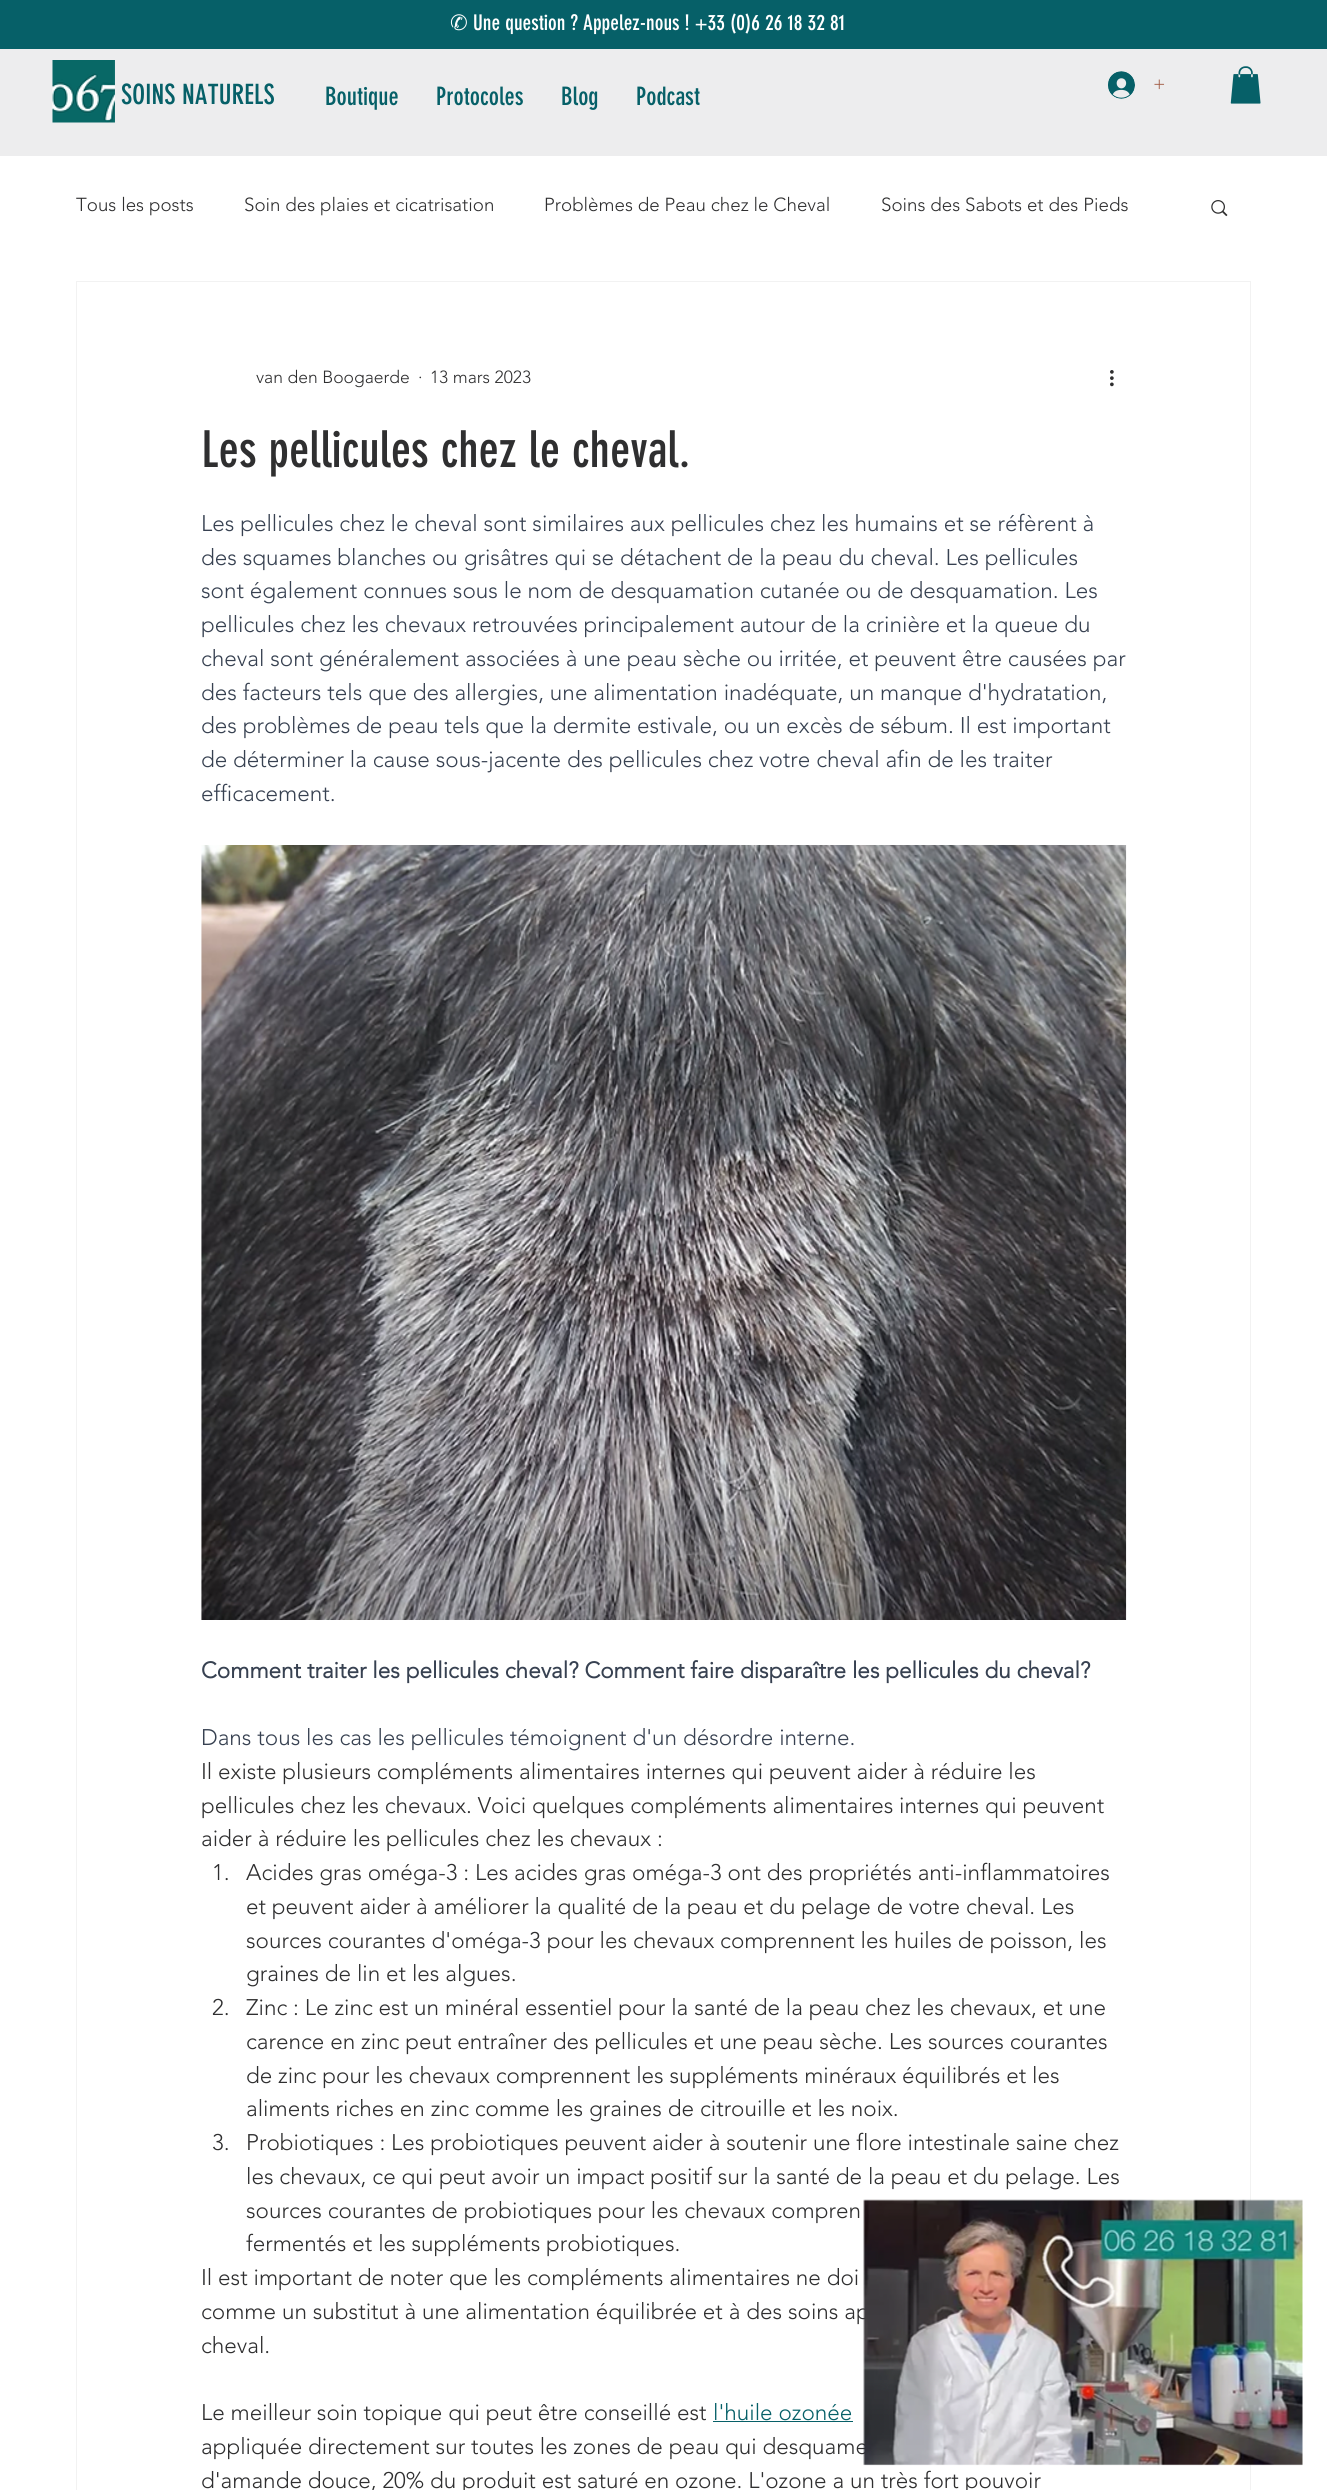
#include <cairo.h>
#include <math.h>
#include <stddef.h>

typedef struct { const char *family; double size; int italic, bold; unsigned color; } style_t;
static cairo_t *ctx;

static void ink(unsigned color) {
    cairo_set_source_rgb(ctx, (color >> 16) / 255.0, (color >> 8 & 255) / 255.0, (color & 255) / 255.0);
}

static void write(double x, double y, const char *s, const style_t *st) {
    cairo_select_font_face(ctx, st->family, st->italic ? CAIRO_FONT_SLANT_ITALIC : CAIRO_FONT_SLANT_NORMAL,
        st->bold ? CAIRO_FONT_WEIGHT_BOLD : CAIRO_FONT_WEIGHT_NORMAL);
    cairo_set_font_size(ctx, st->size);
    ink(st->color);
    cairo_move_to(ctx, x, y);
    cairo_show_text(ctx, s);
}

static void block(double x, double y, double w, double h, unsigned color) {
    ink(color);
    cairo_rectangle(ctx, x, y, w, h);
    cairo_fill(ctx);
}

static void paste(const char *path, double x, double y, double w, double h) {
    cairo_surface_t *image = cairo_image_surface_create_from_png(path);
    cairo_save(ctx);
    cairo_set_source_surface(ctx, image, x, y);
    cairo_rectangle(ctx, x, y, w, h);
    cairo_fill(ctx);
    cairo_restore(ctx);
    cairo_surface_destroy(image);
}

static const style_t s1 = {"DejaVu Sans", 21.25, 0, 0, 0xffffff};
static const style_t s2 = {"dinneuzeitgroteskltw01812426", 21.25, 0, 0, 0xffffff};
static const style_t s3 = {"dinneuzeitgroteskltw01812426", 27.5, 0, 0, 0x066068};
static const style_t s4 = {"dinneuzeitgroteskltw01812426", 25, 0, 0, 0x066068};
static const style_t s5 = {"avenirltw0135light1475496 Light", 18.75, 0, 0, 0xa05841};
static const style_t s6 = {"avenirltw0135light1475496 Light", 18.75, 0, 0, 0x2f2f30};
static const style_t s7 = {"avenirltw0135light1475496 Light", 17.5, 0, 0, 0x2f2f30};
static const style_t s8 = {"dinneuzeitgroteskltw01812426", 50, 0, 0, 0x2f2f30};
static const style_t s9 = {"avenirltw0135light1475496 Light", 22.5, 0, 0, 0x374151};
static const style_t s10 = {"avenirltw0135light1475496", 22.5, 0, 1, 0x374151};
static const style_t s11 = {"avenirltw0135light1475496 Light", 22.5, 0, 0, 0x2f2f30};
static const style_t s12 = {"avenirltw0135light1475496 Light", 22.5, 0, 0, 0x066068};

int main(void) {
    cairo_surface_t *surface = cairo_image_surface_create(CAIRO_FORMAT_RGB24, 1327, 2490);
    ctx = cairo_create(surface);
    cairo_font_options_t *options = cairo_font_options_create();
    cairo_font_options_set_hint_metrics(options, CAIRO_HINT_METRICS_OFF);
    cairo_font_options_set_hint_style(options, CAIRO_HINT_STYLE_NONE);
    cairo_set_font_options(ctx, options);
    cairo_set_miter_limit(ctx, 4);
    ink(0xededee);
    cairo_paint(ctx);
    block(0, 0, 1327, 49, 0x066068);
    write(450, 30, "✆", &s1);
    write(473, 30, "Une question ? Appelez-nous ! +33 (0)6 26 18 32 81", &s2);
    paste("pic1.png", 52, 60, 63, 63);
    write(121, 104, "SOINS NATURELS", &s3);
    write(325, 105, "Boutique", &s4);
    write(436, 105, "Protocoles", &s4);
    write(561, 105, "Blog", &s4);
    write(636, 105, "Podcast", &s4);
    paste("pic2.png", 1108, 71, 27, 28);
    write(1153, 90, "+", &s5);
    paste("pic3.png", 1230, 66, 31, 38);
    block(0, 156, 1327, 2334, 0xffffff);
    write(76, 211, "Tous les posts", &s6);
    write(244, 211, "Soin des plaies et cicatrisation", &s6);
    write(544, 211, "Problèmes de Peau chez le Cheval", &s6);
    write(881, 211, "Soins des Sabots et des Pieds", &s6);
    paste("pic4.png", 1211, 200, 17, 17);
    cairo_rectangle(ctx, 76.5, 281.5, 1174, 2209);
    ink(0xf2f2f2);
    cairo_set_line_width(ctx, 1);
    cairo_stroke(ctx);
    write(256, 383, "van den Boogaerde", &s7);
    write(418, 383, "·", &s7);
    write(430, 383, "13 mars 2023", &s7);
    paste("pic5.png", 1110, 370, 4, 17);
    write(201, 467, "Les pellicules chez le cheval.", &s8);
    write(201, 531, "Les pellicules chez le cheval sont similaires aux pellicules chez les humains et se réfèrent à", &s9);
    write(201, 565, "des squames blanches ou grisâtres qui se détachent de la peau du cheval. Les pellicules", &s9);
    write(201, 598, "sont également connues sous le nom de desquamation cutanée ou de desquamation. Les", &s9);
    write(201, 632, "pellicules chez les chevaux retrouvées principalement autour de la crinière et la queue du", &s9);
    write(201, 666, "cheval sont généralement associées à une peau sèche ou irritée, et peuvent être causées par", &s9);
    write(201, 700, "des facteurs tels que des allergies, une alimentation inadéquate, un manque d'hydratation,", &s9);
    write(201, 733, "des problèmes de peau tels que la dermite estivale, ou un excès de sébum. Il est important", &s9);
    write(201, 767, "de déterminer la cause sous-jacente des pellicules chez votre cheval afin de les traiter", &s9);
    write(201, 801, "efficacement.", &s9);
    paste("pic6.png", 201, 845, 926, 775);
    write(201, 1678, "Comment traiter les pellicules cheval? Comment faire disparaître les pellicules du cheval?", &s10);
    write(201, 1745, "Dans tous les cas les pellicules témoignent d'un désordre interne.", &s9);
    write(201, 1779, "Il existe plusieurs compléments alimentaires internes qui peuvent aider à réduire les", &s11);
    write(201, 1813, "pellicules chez les chevaux. Voici quelques compléments alimentaires internes qui peuvent", &s11);
    write(201, 1846, "aider à réduire les pellicules chez les chevaux :", &s11);
    write(212, 1880, "1.", &s11);
    write(246, 1880, "Acides gras oméga-3 : Les acides gras oméga-3 ont des propriétés anti-inflammatoires", &s11);
    write(246, 1914, "et peuvent aider à améliorer la qualité de la peau et du pelage de votre cheval. Les", &s11);
    write(246, 1948, "sources courantes d'oméga-3 pour les chevaux comprennent les huiles de poisson, les", &s11);
    write(246, 1981, "graines de lin et les algues.", &s11);
    write(212, 2015, "2.", &s11);
    write(246, 2015, "Zinc : Le zinc est un minéral essentiel pour la santé de la peau chez les chevaux, et une", &s11);
    write(246, 2049, "carence en zinc peut entraîner des pellicules et une peau sèche. Les sources courantes", &s11);
    write(246, 2083, "de zinc pour les chevaux comprennent les suppléments minéraux équilibrés et les", &s11);
    write(246, 2116, "aliments riches en zinc comme les graines de citrouille et les noix.", &s11);
    write(212, 2150, "3.", &s11);
    write(246, 2150, "Probiotiques : Les probiotiques peuvent aider à soutenir une flore intestinale saine chez", &s11);
    write(246, 2184, "les chevaux, ce qui peut avoir un impact positif sur la santé de la peau et du pelage. Les", &s11);
    write(246, 2218, "sources courantes de probiotiques pour les chevaux compren", &s11);
    write(246, 2251, "fermentés et les suppléments probiotiques.", &s11);
    write(201, 2285, "Il est important de noter que les compléments alimentaires ne doi", &s11);
    write(201, 2319, "comme un substitut à une alimentation équilibrée et à des soins ap", &s11);
    write(201, 2353, "cheval.", &s11);
    write(201, 2420, "Le meilleur soin topique qui peut être conseillé est", &s11);
    write(713, 2420, "l'huile ozonée", &s12);
    block(713, 2421, 140, 1, 0x066068);
    write(201, 2454, "appliquée directement sur toutes les zones de peau qui desquame", &s11);
    write(201, 2488, "d'amande douce, 20% du produit est saturé en ozone. L'ozone a un très fort pouvoir", &s11);
    paste("pic7.png", 863, 2199, 440, 267);
    cairo_surface_write_to_png(surface, "screenshot.png");
    cairo_font_options_destroy(options);
    cairo_destroy(ctx);
    cairo_surface_destroy(surface);
    return 0;
}
